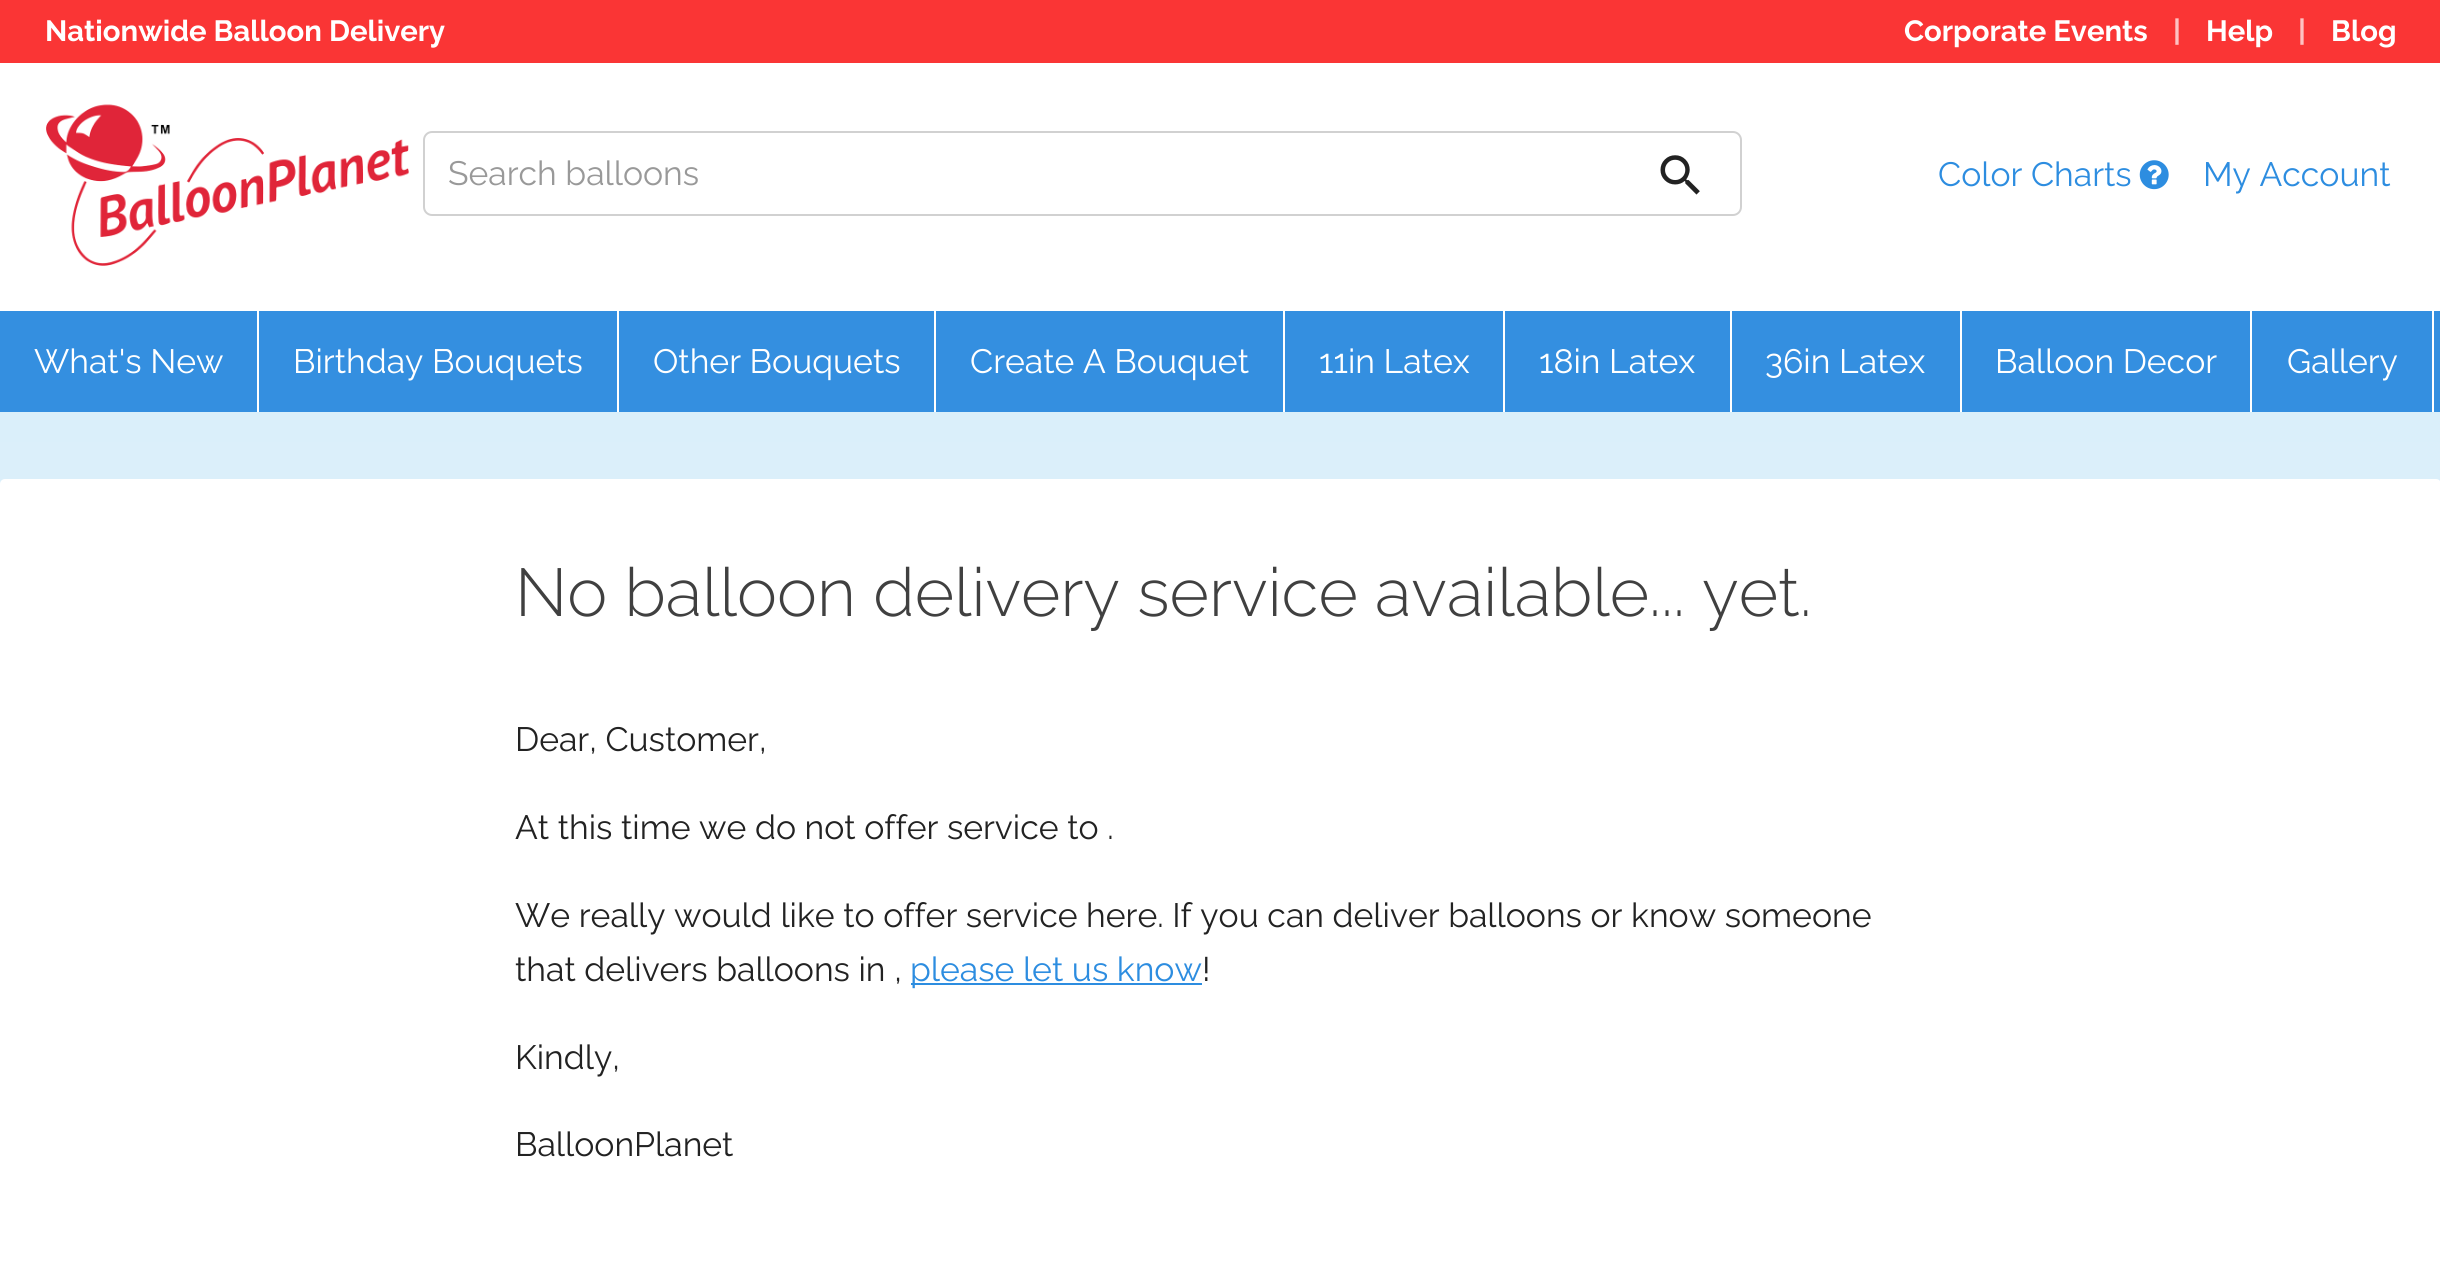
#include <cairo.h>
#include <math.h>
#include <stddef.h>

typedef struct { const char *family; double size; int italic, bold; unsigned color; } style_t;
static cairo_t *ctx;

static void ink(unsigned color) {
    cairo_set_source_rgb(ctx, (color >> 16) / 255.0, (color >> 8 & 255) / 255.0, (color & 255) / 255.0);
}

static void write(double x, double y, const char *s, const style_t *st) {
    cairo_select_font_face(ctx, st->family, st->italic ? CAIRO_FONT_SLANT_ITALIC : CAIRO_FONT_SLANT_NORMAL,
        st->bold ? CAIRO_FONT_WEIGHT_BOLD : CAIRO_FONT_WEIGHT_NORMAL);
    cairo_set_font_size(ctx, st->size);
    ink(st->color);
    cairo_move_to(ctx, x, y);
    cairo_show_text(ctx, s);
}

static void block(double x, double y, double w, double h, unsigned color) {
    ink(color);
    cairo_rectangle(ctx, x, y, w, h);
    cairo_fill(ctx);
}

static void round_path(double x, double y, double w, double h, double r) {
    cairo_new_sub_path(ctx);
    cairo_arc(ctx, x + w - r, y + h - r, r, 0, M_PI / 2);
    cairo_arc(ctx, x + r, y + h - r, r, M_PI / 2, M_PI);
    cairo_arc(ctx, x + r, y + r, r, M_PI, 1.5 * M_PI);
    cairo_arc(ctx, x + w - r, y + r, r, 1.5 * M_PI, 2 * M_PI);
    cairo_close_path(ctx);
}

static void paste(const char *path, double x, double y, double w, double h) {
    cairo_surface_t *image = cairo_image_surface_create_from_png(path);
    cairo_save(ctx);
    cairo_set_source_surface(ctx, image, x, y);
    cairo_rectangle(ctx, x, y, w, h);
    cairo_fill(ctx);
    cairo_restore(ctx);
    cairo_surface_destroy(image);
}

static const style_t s1 = {"Raleway", 29.25, 0, 1, 0xffffff};
static const style_t s2 = {"Raleway", 29.25, 0, 1, 0xfec2c2};
static const style_t s3 = {"Raleway", 33.75, 0, 0, 0x999999};
static const style_t s4 = {"Raleway", 33.75, 0, 0, 0x2d8de0};
static const style_t s5 = {"Raleway", 33.75, 0, 0, 0xffffff};
static const style_t s6 = {"Raleway Light", 67.5, 0, 0, 0x404040};
static const style_t s7 = {"Raleway", 33.75, 0, 0, 0x222222};

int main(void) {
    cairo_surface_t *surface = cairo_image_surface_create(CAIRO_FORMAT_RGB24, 2440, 1261);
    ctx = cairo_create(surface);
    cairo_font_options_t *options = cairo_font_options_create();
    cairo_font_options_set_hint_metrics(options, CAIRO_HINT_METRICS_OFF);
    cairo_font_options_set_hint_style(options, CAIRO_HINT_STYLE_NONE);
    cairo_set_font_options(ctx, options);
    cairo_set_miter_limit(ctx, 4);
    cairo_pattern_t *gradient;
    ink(0xffffff);
    cairo_paint(ctx);
    gradient = cairo_pattern_create_linear(1221, 0, 1221, 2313);
    cairo_pattern_add_color_stop_rgba(gradient, 0, 0.824, 0.922, 0.976, 1);
    cairo_pattern_add_color_stop_rgba(gradient, 1, 0.996, 1, 1, 1);
    cairo_set_source(ctx, gradient);
    cairo_pattern_destroy(gradient);
    cairo_rectangle(ctx, 0, 412, 2440, 72);
    cairo_fill(ctx);
    block(0, 0, 2440, 63, 0xfa3535);
    write(45, 41, "Nationwide Balloon Delivery", &s1);
    write(1904, 41, "Corporate Events", &s1);
    write(2173, 41, "|", &s2);
    write(2206, 41, "Help", &s1);
    write(2298, 41, "|", &s2);
    write(2331, 41, "Blog", &s1);
    paste("pic1.png", 46, 104, 363, 162);
    round_path(424, 132, 1317, 83, 8);
    ink(0xd1d1d1);
    cairo_stroke(ctx);
    write(448, 185, "Search balloons", &s3);
    paste("pic2.png", 1660, 155, 40, 40);
    write(1938, 186, "Color Charts", &s4);
    paste("pic3.png", 2139, 160, 30, 30);
    write(2203, 186, "My Account", &s4);
    block(0, 311, 2440, 101, 0x348fe0);
    block(257, 311, 2, 101, 0xffffff);
    write(34, 373, "What's New", &s5);
    block(617, 311, 2, 101, 0xffffff);
    write(293, 373, "Birthday Bouquets", &s5);
    block(934, 311, 2, 101, 0xffffff);
    write(653, 373, "Other Bouquets", &s5);
    block(1283, 311, 2, 101, 0xffffff);
    write(970, 373, "Create A Bouquet", &s5);
    block(1503, 311, 2, 101, 0xffffff);
    write(1319, 373, "11in Latex", &s5);
    block(1730, 311, 2, 101, 0xffffff);
    write(1539, 373, "18in Latex", &s5);
    block(1960, 311, 2, 101, 0xffffff);
    write(1765, 373, "36in Latex", &s5);
    block(2250, 311, 2, 101, 0xffffff);
    write(1995, 373, "Balloon Decor", &s5);
    block(2432, 311, 2, 101, 0xffffff);
    write(2287, 373, "Gallery", &s5);
    round_path(0, 479, 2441, 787, 5);
    cairo_fill(ctx);
    write(515, 616, "No balloon delivery service available... yet.", &s6);
    write(515, 751, "Dear, Customer,", &s7);
    write(515, 839, "At this time we do not offer service to .", &s7);
    write(515, 927, "We really would like to offer service here. If you can deliver balloons or know someone", &s7);
    write(515, 981, "that delivers balloons in ,", &s7);
    block(911, 983, 291, 2, 0x2d8de0);
    write(910, 981, "please let us know", &s4);
    write(1202, 981, "!", &s7);
    write(515, 1069, "Kindly,", &s7);
    write(515, 1156, "BalloonPlanet", &s7);
    cairo_surface_write_to_png(surface, "screenshot.png");
    cairo_font_options_destroy(options);
    cairo_destroy(ctx);
    cairo_surface_destroy(surface);
    return 0;
}
